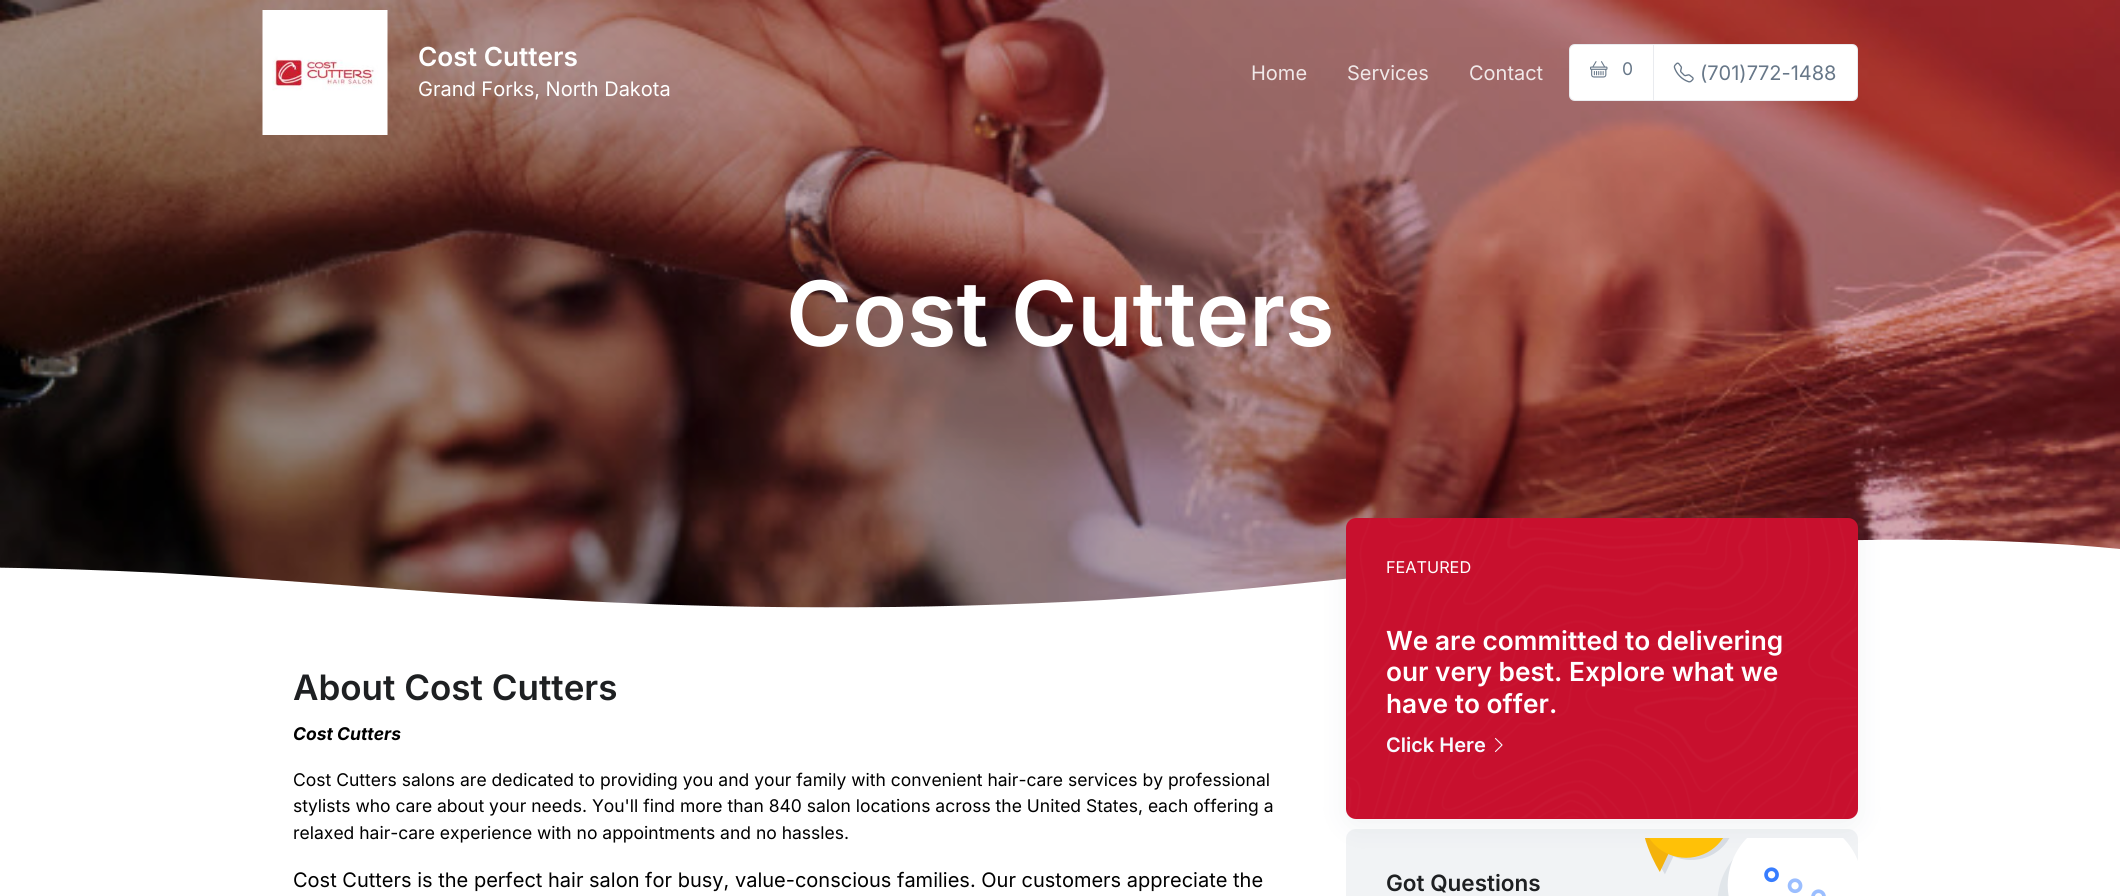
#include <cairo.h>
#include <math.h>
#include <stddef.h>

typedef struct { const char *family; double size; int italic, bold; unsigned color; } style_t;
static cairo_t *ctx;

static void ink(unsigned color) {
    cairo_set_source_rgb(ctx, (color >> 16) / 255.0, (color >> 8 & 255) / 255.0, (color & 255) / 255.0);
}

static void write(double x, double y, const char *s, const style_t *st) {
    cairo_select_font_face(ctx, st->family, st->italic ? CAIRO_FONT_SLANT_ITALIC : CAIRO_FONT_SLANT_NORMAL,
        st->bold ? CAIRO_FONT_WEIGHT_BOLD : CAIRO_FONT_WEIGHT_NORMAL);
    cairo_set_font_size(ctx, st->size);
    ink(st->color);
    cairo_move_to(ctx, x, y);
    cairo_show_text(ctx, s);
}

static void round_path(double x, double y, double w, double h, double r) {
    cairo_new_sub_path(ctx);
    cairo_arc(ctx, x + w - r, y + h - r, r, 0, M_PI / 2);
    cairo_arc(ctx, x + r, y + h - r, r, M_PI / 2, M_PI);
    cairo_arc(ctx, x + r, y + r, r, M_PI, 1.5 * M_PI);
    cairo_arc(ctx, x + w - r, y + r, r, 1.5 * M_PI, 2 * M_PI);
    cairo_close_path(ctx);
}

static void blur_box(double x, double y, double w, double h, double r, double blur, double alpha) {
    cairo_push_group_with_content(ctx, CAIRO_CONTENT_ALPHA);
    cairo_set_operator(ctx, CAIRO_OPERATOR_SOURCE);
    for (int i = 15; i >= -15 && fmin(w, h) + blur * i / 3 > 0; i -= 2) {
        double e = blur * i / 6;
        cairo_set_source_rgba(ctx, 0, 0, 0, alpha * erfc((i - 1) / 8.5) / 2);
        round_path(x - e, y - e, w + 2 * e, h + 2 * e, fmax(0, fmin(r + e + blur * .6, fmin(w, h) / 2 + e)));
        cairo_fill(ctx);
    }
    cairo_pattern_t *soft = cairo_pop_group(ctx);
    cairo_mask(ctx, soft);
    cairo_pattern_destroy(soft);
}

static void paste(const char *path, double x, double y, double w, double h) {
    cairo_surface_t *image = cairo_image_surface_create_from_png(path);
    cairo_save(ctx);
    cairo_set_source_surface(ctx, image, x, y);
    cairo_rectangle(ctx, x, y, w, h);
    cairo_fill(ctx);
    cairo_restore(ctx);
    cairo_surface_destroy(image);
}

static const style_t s1 = {"Inter SemiBold", 26.25, 0, 0, 0xffffff};
static const style_t s2 = {"Inter", 20, 0, 0, 0xffffff};
static const style_t s3 = {"Inter", 20, 0, 0, 0xf0e8e8};
static const style_t s4 = {"Inter", 17.5, 0, 0, 0x677788};
static const style_t s5 = {"Inter", 20, 0, 0, 0x677788};
static const style_t s6 = {"Inter SemiBold", 90, 0, 0, 0xffffff};
static const style_t s7 = {"Inter SemiBold", 35, 0, 0, 0x1e2022};
static const style_t s8 = {"Inter", 17.5, 1, 1, 0x000000};
static const style_t s9 = {"Inter", 17.5, 0, 0, 0x000000};
static const style_t s10 = {"Inter", 20, 0, 0, 0x000000};
static const style_t s11 = {"Inter", 16.25, 0, 0, 0xffffff};
static const style_t s12 = {"Inter SemiBold", 20, 0, 0, 0xf7faff};
static const style_t s13 = {"Inter SemiBold", 22.5, 0, 0, 0x1e2022};

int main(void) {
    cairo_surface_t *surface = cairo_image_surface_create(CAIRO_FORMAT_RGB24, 2120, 896);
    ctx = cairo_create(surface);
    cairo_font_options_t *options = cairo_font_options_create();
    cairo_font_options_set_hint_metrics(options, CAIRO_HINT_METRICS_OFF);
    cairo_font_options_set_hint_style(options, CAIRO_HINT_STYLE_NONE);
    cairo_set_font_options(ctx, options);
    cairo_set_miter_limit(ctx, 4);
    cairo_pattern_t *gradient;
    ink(0xffffff);
    cairo_paint(ctx);
    paste("pic4.png", 0, 0, 2120, 608);
    gradient = cairo_pattern_create_linear(378, 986, 1742, -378);
    cairo_pattern_add_color_stop_rgba(gradient, 0.15, 0, 0, 0, 0.4);
    cairo_pattern_add_color_stop_rgba(gradient, 1, 0.784, 0.063, 0.18, 0.35);
    cairo_set_source(ctx, gradient);
    cairo_pattern_destroy(gradient);
    cairo_rectangle(ctx, 0, 0, 2120, 608);
    cairo_fill(ctx);
    paste("pic1.png", 262, 10, 126, 125);
    write(418, 66, "Cost Cutters", &s1);
    write(418, 96, "Grand Forks, North Dakota", &s2);
    write(1251, 80, "Home", &s3);
    write(1347, 80, "Services", &s3);
    write(1469, 80, "Contact", &s3);
    ink(0xffffff);
    cairo_new_path(ctx);
    cairo_move_to(ctx, 1575, 44);
    cairo_line_to(ctx, 1654, 44);
    cairo_line_to(ctx, 1654, 101);
    cairo_line_to(ctx, 1575, 101);
    cairo_curve_to(ctx, 1571.5, 101, 1569, 98.5, 1569, 95);
    cairo_line_to(ctx, 1569, 50);
    cairo_curve_to(ctx, 1569, 46.5, 1571.5, 44, 1575, 44);
    cairo_close_path(ctx);
    cairo_fill(ctx);
    cairo_new_path(ctx);
    cairo_move_to(ctx, 1575, 44.5);
    cairo_line_to(ctx, 1653.5, 44.5);
    cairo_line_to(ctx, 1653.5, 100.5);
    cairo_line_to(ctx, 1575, 100.5);
    cairo_curve_to(ctx, 1572, 100.5, 1569.5, 98, 1569.5, 95);
    cairo_line_to(ctx, 1569.5, 50);
    cairo_curve_to(ctx, 1569.5, 47, 1572, 44.5, 1575, 44.5);
    cairo_close_path(ctx);
    cairo_set_source_rgba(ctx, 0.129, 0.196, 0.357, 0.1);
    cairo_set_line_width(ctx, 1);
    cairo_stroke(ctx);
    paste("pic2.png", 1590, 61, 18, 17);
    write(1622, 75, "0", &s4);
    ink(0xffffff);
    cairo_new_path(ctx);
    cairo_move_to(ctx, 1653, 44);
    cairo_line_to(ctx, 1852, 44);
    cairo_curve_to(ctx, 1855.5, 44, 1858, 46.5, 1858, 50);
    cairo_line_to(ctx, 1858, 95);
    cairo_curve_to(ctx, 1858, 98.5, 1855.5, 101, 1852, 101);
    cairo_line_to(ctx, 1653, 101);
    cairo_close_path(ctx);
    cairo_fill(ctx);
    cairo_new_path(ctx);
    cairo_move_to(ctx, 1653.5, 44.5);
    cairo_line_to(ctx, 1852, 44.5);
    cairo_curve_to(ctx, 1855, 44.5, 1857.5, 47, 1857.5, 50);
    cairo_line_to(ctx, 1857.5, 95);
    cairo_curve_to(ctx, 1857.5, 98, 1855, 100.5, 1852, 100.5);
    cairo_line_to(ctx, 1653.5, 100.5);
    cairo_close_path(ctx);
    cairo_set_source_rgba(ctx, 0.129, 0.196, 0.357, 0.1);
    cairo_stroke(ctx);
    paste("pic3.png", 1673, 62, 21, 21);
    write(1700, 80, "(701)772-1488", &s5);
    write(786, 346, "Cost Cutters", &s6);
    cairo_new_path(ctx);
    cairo_move_to(ctx, 163, 573);
    cairo_curve_to(ctx, 292, 580, 417, 592, 546, 599);
    cairo_curve_to(ctx, 730, 610, 921, 610, 1104, 600);
    cairo_curve_to(ctx, 1282, 589, 1467, 563, 1643, 550);
    cairo_curve_to(ctx, 1799, 539, 1969, 534, 2120, 549);
    cairo_line_to(ctx, 2120, 608);
    cairo_line_to(ctx, -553, 608);
    cairo_line_to(ctx, -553, 591);
    cairo_curve_to(ctx, -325, 567, -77, 561, 163, 573);
    cairo_close_path(ctx);
    cairo_fill(ctx);
    write(293, 700, "About Cost Cutters", &s7);
    write(293, 740, "Cost Cutters", &s8);
    write(293, 786, "Cost Cutters salons are dedicated to providing you and your family with convenient hair-care services by professional", &s9);
    write(293, 812, "stylists who care about your needs. You'll find more than 840 salon locations across the United States, each offering a", &s9);
    write(293, 839, "relaxed hair-care experience with no appointments and no hassles.", &s9);
    write(293, 887, "Cost Cutters is the perfect hair salon for busy, value-conscious families. Our customers appreciate the", &s10);
    ink(0x8c98a4);
    blur_box(1346, 525, 512, 301, 10, 15, 0.12);
    ink(0xc8102e);
    round_path(1346, 518, 512, 301, 10);
    cairo_fill(ctx);
    paste("pic5.png", 1347, 518, 510, 300);
    write(1386, 573, "FEATURED", &s11);
    write(1386, 650, "We are committed to delivering", &s1);
    write(1386, 681, "our very best. Explore what we", &s1);
    write(1386, 713, "have to offer.", &s1);
    write(1386, 752, "Click Here", &s12);
    paste("pic6.png", 1494, 737, 9, 16);
    cairo_set_source_rgba(ctx, 0.443, 0.525, 0.616, 0.1);
    round_path(1346, 829, 512, 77, 10);
    cairo_fill(ctx);
    write(1386, 891, "Got Questions", &s13);
    paste("pic7.png", 1645, 838, 213, 58);
    cairo_surface_write_to_png(surface, "screenshot.png");
    cairo_font_options_destroy(options);
    cairo_destroy(ctx);
    cairo_surface_destroy(surface);
    return 0;
}
